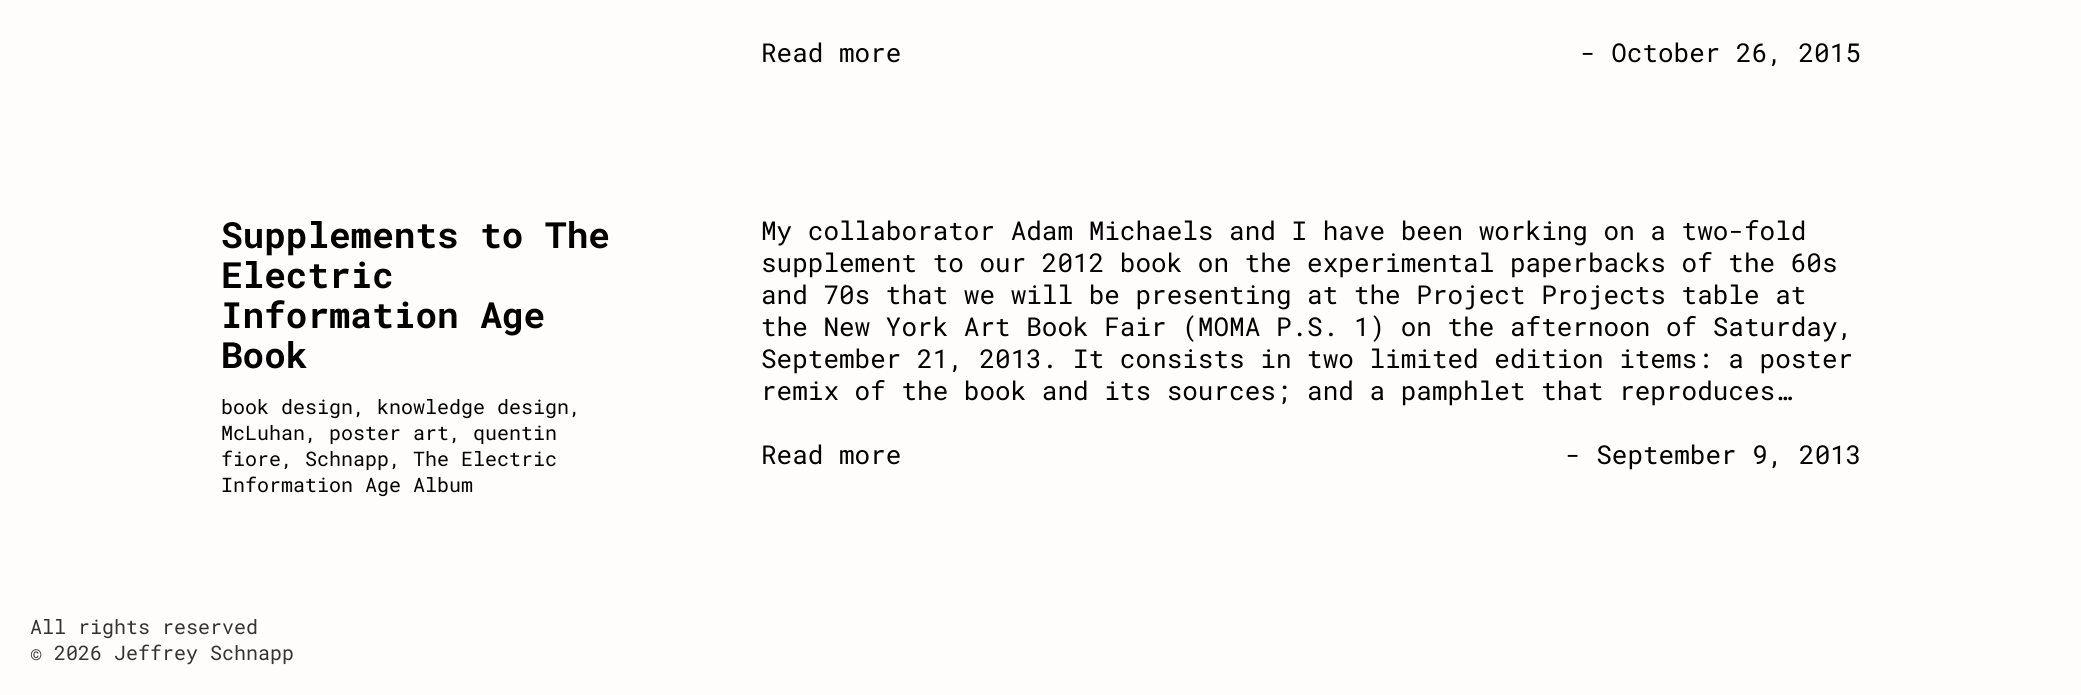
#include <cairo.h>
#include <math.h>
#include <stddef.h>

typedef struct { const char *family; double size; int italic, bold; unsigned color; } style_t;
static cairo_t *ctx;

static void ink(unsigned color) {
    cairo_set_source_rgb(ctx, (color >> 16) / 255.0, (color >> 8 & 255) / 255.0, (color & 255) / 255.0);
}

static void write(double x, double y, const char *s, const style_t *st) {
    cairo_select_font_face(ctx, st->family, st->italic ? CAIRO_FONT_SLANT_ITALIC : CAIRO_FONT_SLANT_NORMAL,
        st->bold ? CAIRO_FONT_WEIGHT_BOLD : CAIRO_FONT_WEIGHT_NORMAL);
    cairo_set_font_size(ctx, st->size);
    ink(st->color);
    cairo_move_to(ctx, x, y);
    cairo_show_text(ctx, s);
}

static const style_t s1 = {"Roboto Mono", 26, 0, 0, 0x000000};
static const style_t s2 = {"Roboto Mono", 36, 0, 1, 0x000000};
static const style_t s3 = {"Roboto Mono", 20, 0, 0, 0x000000};
static const style_t s4 = {"Roboto Mono", 20, 0, 0, 0x333333};

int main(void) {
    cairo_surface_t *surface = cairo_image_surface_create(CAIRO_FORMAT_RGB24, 2081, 695);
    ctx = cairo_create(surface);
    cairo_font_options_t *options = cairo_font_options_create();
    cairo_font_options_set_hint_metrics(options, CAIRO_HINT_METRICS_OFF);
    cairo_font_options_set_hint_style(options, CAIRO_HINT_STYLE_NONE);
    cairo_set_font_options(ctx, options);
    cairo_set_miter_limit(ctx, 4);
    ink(0xfffcfc);
    cairo_paint(ctx);
    write(761, 62, "Read more", &s1);
    write(1580, 62, "- October 26, 2015", &s1);
    write(221, 248, "Supplements to The", &s2);
    write(221, 288, "Electric", &s2);
    write(221, 328, "Information Age", &s2);
    write(221, 368, "Book", &s2);
    write(221, 414, "book design, knowledge design,", &s3);
    write(221, 440, "McLuhan, poster art, quentin", &s3);
    write(221, 466, "fiore, Schnapp, The Electric", &s3);
    write(221, 492, "Information Age Album", &s3);
    write(761, 240, "My collaborator Adam Michaels and I have been working on a two-fold", &s1);
    write(761, 272, "supplement to our 2012 book on the experimental paperbacks of the 60s", &s1);
    write(761, 304, "and 70s that we will be presenting at the Project Projects table at", &s1);
    write(761, 336, "the New York Art Book Fair (MOMA P.S. 1) on the afternoon of Saturday,", &s1);
    write(761, 368, "September 21, 2013. It consists in two limited edition items: a poster", &s1);
    write(761, 400, "remix of the book and its sources; and a pamphlet that reproduces…", &s1);
    write(761, 464, "Read more", &s1);
    write(1565, 464, "- September 9, 2013", &s1);
    write(30, 634, "All rights reserved", &s4);
    write(30, 660, "© 2026 Jeffrey Schnapp", &s4);
    cairo_surface_write_to_png(surface, "screenshot.png");
    cairo_font_options_destroy(options);
    cairo_destroy(ctx);
    cairo_surface_destroy(surface);
    return 0;
}
